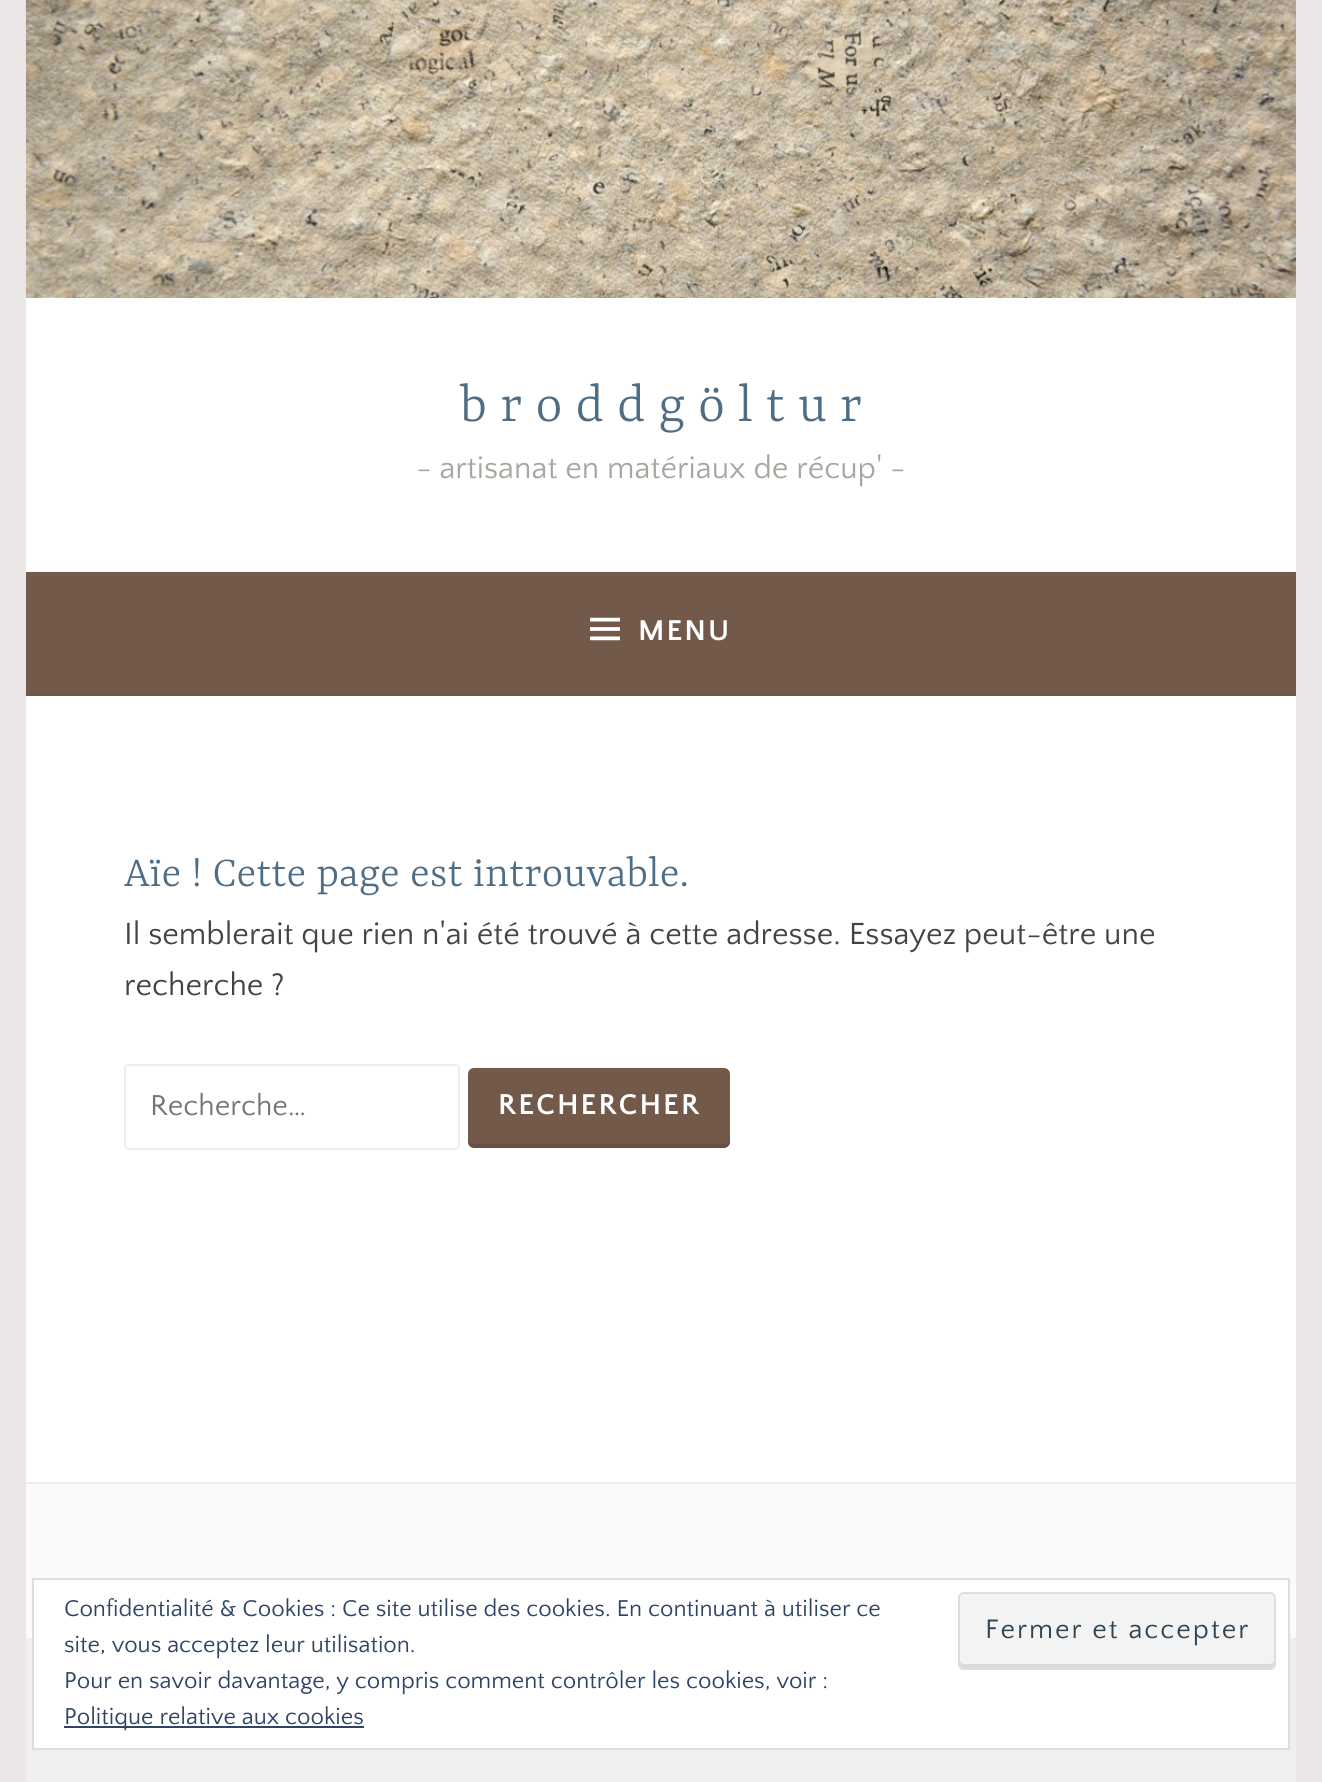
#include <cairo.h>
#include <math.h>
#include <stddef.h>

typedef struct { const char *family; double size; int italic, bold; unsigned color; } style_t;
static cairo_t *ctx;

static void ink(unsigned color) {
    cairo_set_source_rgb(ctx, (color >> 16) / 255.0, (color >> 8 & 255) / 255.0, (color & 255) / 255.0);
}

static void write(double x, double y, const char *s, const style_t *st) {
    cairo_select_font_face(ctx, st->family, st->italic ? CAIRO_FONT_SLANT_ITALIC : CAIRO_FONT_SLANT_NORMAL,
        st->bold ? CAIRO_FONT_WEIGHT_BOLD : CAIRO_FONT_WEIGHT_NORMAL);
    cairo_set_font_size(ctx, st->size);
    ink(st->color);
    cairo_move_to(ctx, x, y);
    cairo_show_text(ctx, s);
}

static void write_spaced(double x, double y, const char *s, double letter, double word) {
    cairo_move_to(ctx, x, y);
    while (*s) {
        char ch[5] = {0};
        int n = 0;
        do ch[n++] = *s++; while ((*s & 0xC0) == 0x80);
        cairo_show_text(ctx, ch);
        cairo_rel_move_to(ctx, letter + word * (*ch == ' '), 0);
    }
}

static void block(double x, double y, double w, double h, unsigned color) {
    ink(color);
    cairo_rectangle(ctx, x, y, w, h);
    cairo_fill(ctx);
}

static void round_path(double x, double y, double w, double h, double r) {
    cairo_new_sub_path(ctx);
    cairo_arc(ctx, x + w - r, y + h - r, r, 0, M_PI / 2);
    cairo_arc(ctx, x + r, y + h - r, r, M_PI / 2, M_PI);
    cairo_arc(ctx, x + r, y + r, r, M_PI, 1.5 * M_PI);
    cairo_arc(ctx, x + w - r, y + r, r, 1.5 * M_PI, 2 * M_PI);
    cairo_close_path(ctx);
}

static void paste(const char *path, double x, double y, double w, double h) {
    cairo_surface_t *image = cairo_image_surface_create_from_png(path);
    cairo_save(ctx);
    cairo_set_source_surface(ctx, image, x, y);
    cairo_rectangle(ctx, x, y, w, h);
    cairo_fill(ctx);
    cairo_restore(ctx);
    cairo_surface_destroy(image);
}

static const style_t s1 = {"Yrsa Light", 58, 0, 0, 0x4f6e86};
static const style_t s2 = {"Quattrocento Sans", 32, 0, 0, 0xa8a6a1};
static const style_t s3 = {"Yrsa Light", 46, 0, 0, 0x4f6e86};
static const style_t s4 = {"Quattrocento Sans", 32, 0, 0, 0x444340};
static const style_t s5 = {"Quattrocento Sans", 30, 0, 0, 0x757575};
static const style_t s6 = {"Quattrocento Sans", 24, 0, 0, 0x2e4467};

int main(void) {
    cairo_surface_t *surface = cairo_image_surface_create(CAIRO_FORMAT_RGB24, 1322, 1782);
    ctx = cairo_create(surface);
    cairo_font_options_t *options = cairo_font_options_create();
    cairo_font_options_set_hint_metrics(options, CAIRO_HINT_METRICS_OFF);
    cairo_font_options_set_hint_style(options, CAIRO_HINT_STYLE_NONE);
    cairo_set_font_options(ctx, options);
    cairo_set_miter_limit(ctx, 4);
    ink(0xeae6e5);
    cairo_paint(ctx);
    paste("pic1.png", 26, 0, 1270, 298);
    block(26, 298, 1270, 274, 0xffffff);
    write(460, 421, "b r o d d g ö l t u r", &s1);
    write(416, 478, "- artisanat en matériaux de récup' -", &s2);
    block(26, 572, 1270, 120, 0x72594a);
    block(26, 692, 1270, 4, 0x6f5648);
    paste("pic2.png", 590, 617, 30, 24);
    cairo_select_font_face(ctx, "Quattrocento Sans", CAIRO_FONT_SLANT_NORMAL, CAIRO_FONT_WEIGHT_BOLD);
    cairo_set_font_size(ctx, 30);
    ink(0xffffff);
    write_spaced(638, 640, "MENU", 2, 0);
    block(26, 696, 1270, 786, 0xffffff);
    write(124, 886, "Aïe ! Cette page est introuvable.", &s3);
    write(124, 944, "Il semblerait que rien n'ai été trouvé à cette adresse. Essayez peut-être une", &s4);
    write(124, 995, "recherche ?", &s4);
    round_path(125, 1065, 334, 84, 3);
    ink(0xeeeeee);
    cairo_stroke(ctx);
    write(150, 1115, "Recherche…", &s5);
    ink(0x72594a);
    round_path(468, 1068, 262, 80, 6);
    cairo_fill(ctx);
    cairo_set_source_rgba(ctx, 0, 0, 0, 0.1);
    cairo_new_path(ctx);
    cairo_move_to(ctx, 468, 1138);
    cairo_line_to(ctx, 468, 1142);
    cairo_curve_to(ctx, 468, 1145, 471, 1148, 474, 1148);
    cairo_line_to(ctx, 724, 1148);
    cairo_curve_to(ctx, 727, 1148, 730, 1145, 730, 1142);
    cairo_line_to(ctx, 730, 1138);
    cairo_curve_to(ctx, 730, 1141, 727, 1144, 724, 1144);
    cairo_line_to(ctx, 474, 1144);
    cairo_curve_to(ctx, 471, 1144, 468, 1141, 468, 1138);
    cairo_close_path(ctx);
    cairo_fill(ctx);
    cairo_select_font_face(ctx, "Quattrocento Sans", CAIRO_FONT_SLANT_NORMAL, CAIRO_FONT_WEIGHT_BOLD);
    ink(0xffffff);
    write_spaced(498, 1114, "RECHERCHER", 2, 0);
    block(26, 1484, 1270, 154, 0xfafafa);
    block(26, 1482, 1270, 2, 0xeeeeee);
    block(26, 1638, 1270, 144, 0xf1eeee);
    ink(0xffffff);
    cairo_rectangle(ctx, 33, 1579, 1256, 170);
    cairo_fill_preserve(ctx);
    ink(0xdedede);
    cairo_stroke(ctx);
    write(64, 1616, "Confidentialité & Cookies : Ce site utilise des cookies. En continuant à utiliser ce", &s6);
    write(64, 1652, "site, vous acceptez leur utilisation.", &s6);
    ink(0xf3f3f3);
    round_path(958, 1592, 318, 78, 6);
    cairo_fill(ctx);
    ink(0xdbdbdb);
    cairo_new_path(ctx);
    cairo_move_to(ctx, 960, 1660);
    cairo_line_to(ctx, 960, 1664);
    cairo_curve_to(ctx, 960, 1666, 962, 1668, 964, 1668);
    cairo_line_to(ctx, 1270, 1668);
    cairo_curve_to(ctx, 1272, 1668, 1274, 1666, 1274, 1664);
    cairo_line_to(ctx, 1274, 1660);
    cairo_curve_to(ctx, 1274, 1662, 1272, 1664, 1270, 1664);
    cairo_line_to(ctx, 964, 1664);
    cairo_curve_to(ctx, 962, 1664, 960, 1662, 960, 1660);
    cairo_close_path(ctx);
    cairo_fill(ctx);
    round_path(959, 1593, 316, 76, 5);
    ink(0xdedede);
    cairo_stroke(ctx);
    cairo_set_font_size(ctx, 28);
    ink(0x2e4453);
    write_spaced(985, 1638, "Fermer et accepter", 2, 0);
    write(64, 1688, "Pour en savoir davantage, y compris comment contrôler les cookies, voir :", &s6);
    block(64, 1726, 300, 2, 0x2e4467);
    write(64, 1724, "Politique relative aux cookies", &s6);
    cairo_surface_write_to_png(surface, "screenshot.png");
    cairo_font_options_destroy(options);
    cairo_destroy(ctx);
    cairo_surface_destroy(surface);
    return 0;
}
